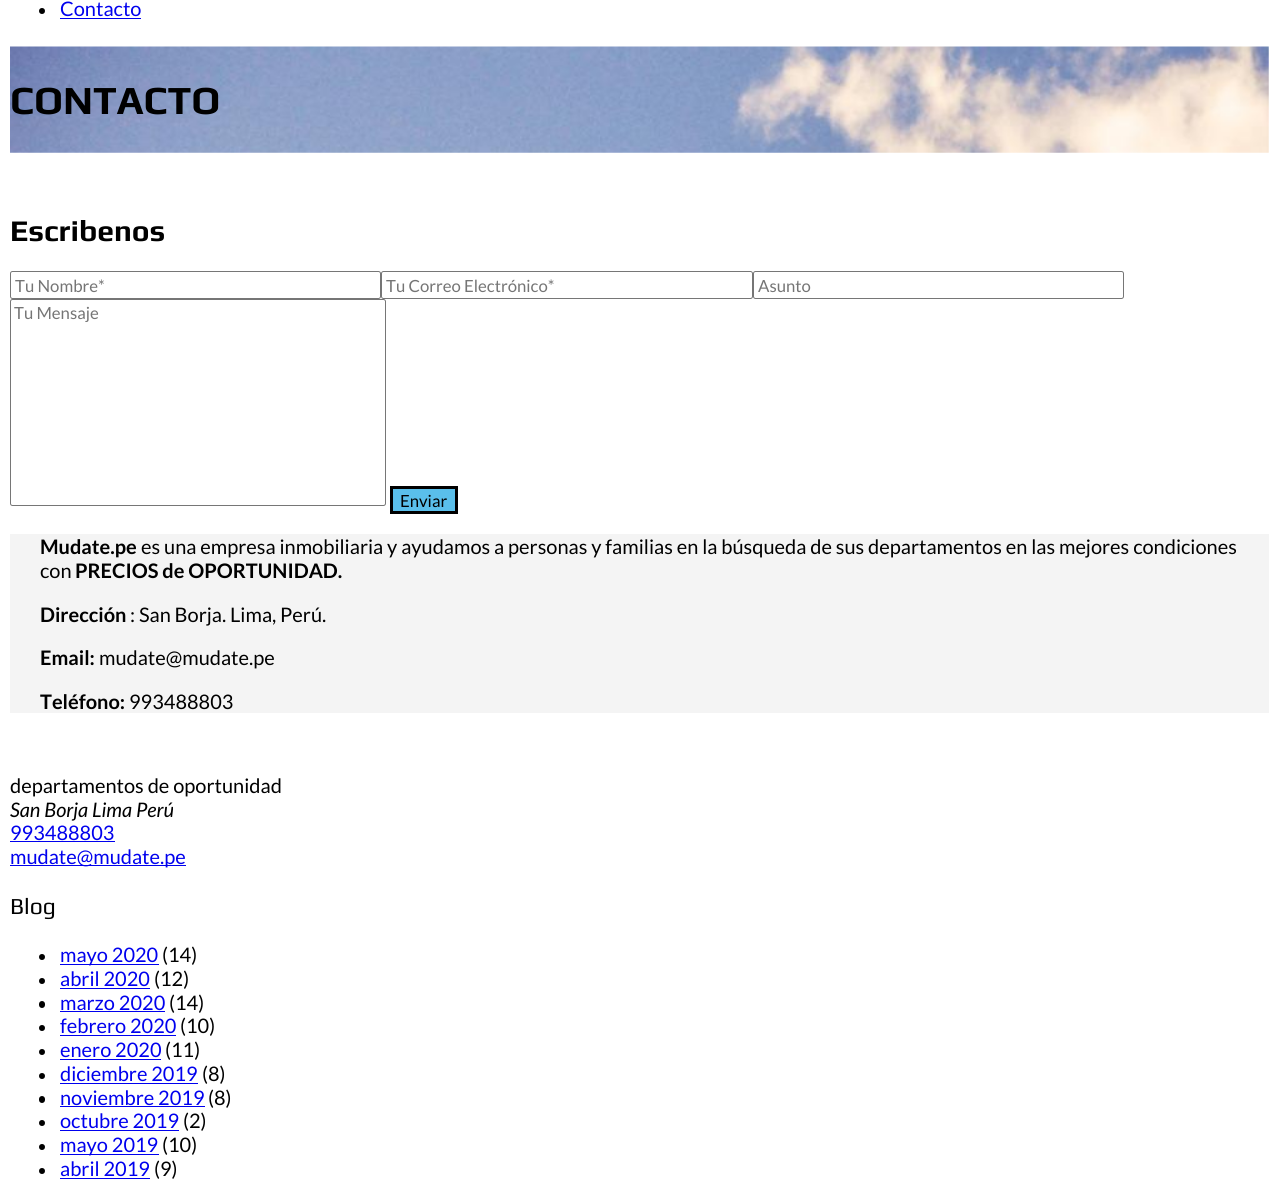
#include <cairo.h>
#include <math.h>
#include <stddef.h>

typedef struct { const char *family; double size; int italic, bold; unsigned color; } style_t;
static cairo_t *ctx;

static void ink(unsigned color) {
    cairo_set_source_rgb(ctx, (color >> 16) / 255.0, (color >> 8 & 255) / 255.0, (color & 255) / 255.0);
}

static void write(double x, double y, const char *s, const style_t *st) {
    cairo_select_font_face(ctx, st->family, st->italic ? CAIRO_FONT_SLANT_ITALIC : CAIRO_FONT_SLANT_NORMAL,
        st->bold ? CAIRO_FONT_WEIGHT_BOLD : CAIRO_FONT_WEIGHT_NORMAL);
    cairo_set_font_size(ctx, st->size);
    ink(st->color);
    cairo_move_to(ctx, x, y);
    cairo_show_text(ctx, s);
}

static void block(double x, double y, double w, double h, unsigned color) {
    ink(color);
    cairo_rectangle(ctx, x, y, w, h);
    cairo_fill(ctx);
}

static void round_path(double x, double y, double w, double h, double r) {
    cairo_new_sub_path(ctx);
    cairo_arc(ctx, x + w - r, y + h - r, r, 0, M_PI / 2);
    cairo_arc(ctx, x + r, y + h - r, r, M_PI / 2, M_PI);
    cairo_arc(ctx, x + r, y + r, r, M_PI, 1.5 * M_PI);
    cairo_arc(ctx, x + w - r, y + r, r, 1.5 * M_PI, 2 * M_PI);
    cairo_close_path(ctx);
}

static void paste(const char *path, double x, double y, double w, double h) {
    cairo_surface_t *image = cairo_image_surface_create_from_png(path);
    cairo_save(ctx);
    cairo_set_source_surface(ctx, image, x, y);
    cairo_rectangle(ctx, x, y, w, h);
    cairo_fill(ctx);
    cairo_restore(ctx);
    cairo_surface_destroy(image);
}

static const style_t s1 = {"Lato", 20, 0, 0, 0x0000ee};
static const style_t s2 = {"Play", 40, 0, 1, 0x000000};
static const style_t s3 = {"Play", 30, 0, 1, 0x000000};
static const style_t s4 = {"Lato", 16.75, 0, 0, 0x757575};
static const style_t s5 = {"Lato", 16.75, 0, 0, 0x000000};
static const style_t s6 = {"Lato", 20, 0, 1, 0x000000};
static const style_t s7 = {"Lato", 20, 0, 0, 0x000000};
static const style_t s8 = {"Lato", 20, 1, 0, 0x000000};
static const style_t s9 = {"Play", 23, 0, 0, 0x000000};

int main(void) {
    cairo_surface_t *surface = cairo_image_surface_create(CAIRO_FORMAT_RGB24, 1278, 1188);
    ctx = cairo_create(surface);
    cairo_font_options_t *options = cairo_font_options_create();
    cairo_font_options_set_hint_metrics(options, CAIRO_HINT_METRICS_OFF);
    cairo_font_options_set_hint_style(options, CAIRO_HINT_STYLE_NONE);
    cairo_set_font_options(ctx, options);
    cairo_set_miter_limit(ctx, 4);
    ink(0xffffff);
    cairo_paint(ctx);
    ink(0x000000);
    cairo_arc(ctx, 42, 11, 3, 0, 2 * M_PI);
    cairo_fill(ctx);
    write(60, 16, "Contacto", &s1);
    block(60, 18, 81, 1, 0x0000ee);
    paste("pic1.png", 10, 46, 1259, 107);
    write(10, 114, "CONTACTO", &s2);
    write(10, 241, "Escribenos", &s3);
    round_path(10.5, 271.5, 370, 27, 2);
    ink(0x767676);
    cairo_set_line_width(ctx, 1);
    cairo_stroke(ctx);
    write(15, 292, "Tu Nombre*", &s4);
    round_path(381.5, 271.5, 371, 27, 2);
    ink(0x767676);
    cairo_stroke(ctx);
    write(386, 292, "Tu Correo Electrónico*", &s4);
    round_path(753.5, 271.5, 370, 27, 2);
    ink(0x767676);
    cairo_stroke(ctx);
    write(758, 292, "Asunto", &s4);
    round_path(10.5, 299.5, 375, 206, 2);
    ink(0x767676);
    cairo_stroke(ctx);
    write(14, 319, "Tu Mensaje", &s4);
    ink(0x5abfeb);
    cairo_rectangle(ctx, 391.5, 487.5, 65, 25);
    cairo_fill_preserve(ctx);
    ink(0x000000);
    cairo_set_line_width(ctx, 3);
    cairo_stroke(ctx);
    write(400, 507, "Enviar", &s5);
    block(10, 534, 1259, 179, 0xf4f4f4);
    write(40, 554, "Mudate.pe", &s6);
    write(141, 554, "es una empresa inmobiliaria y ayudamos a personas y familias en la búsqueda de sus departamentos en las mejores condiciones", &s7);
    write(40, 578, "con", &s7);
    write(75, 578, "PRECIOS de OPORTUNIDAD.", &s6);
    write(40, 622, "Dirección", &s6);
    write(130, 622, ": San Borja. Lima, Perú.", &s7);
    write(40, 665, "Email:", &s6);
    write(99, 665, "mudate@mudate.pe", &s7);
    write(40, 709, "Teléfono:", &s6);
    write(129, 709, "993488803", &s7);
    write(10, 793, "departamentos de oportunidad", &s7);
    write(10, 817, "San Borja Lima Perú", &s8);
    write(10, 840, "993488803", &s1);
    block(10, 841, 105, 1, 0x0000ee);
    block(10, 865, 176, 1, 0x0000ee);
    write(10, 864, "mudate@mudate.pe", &s1);
    write(10, 914, "Blog", &s9);
    cairo_new_path(ctx);
    cairo_arc(ctx, 42, 957, 3, 0, 2 * M_PI);
    cairo_fill(ctx);
    block(60, 964, 99, 1, 0x0000ee);
    write(60, 962, "mayo 2020", &s1);
    write(162, 962, "(14)", &s7);
    cairo_new_path(ctx);
    cairo_arc(ctx, 42, 981, 3, 0, 2 * M_PI);
    cairo_fill(ctx);
    write(60, 986, "abril 2020", &s1);
    block(60, 988, 90, 1, 0x0000ee);
    write(154, 986, "(12)", &s7);
    round_path(39, 1001, 6, 7, 3);
    cairo_fill(ctx);
    write(60, 1010, "marzo 2020", &s1);
    block(60, 1011, 105, 1, 0x0000ee);
    write(169, 1010, "(14)", &s7);
    cairo_new_path(ctx);
    cairo_arc(ctx, 42, 1028, 3, 0, 2 * M_PI);
    cairo_fill(ctx);
    write(60, 1033, "febrero 2020", &s1);
    block(60, 1035, 116, 1, 0x0000ee);
    write(180, 1033, "(10)", &s7);
    cairo_new_path(ctx);
    cairo_arc(ctx, 42, 1052, 3, 0, 2 * M_PI);
    cairo_fill(ctx);
    write(60, 1057, "enero 2020", &s1);
    block(60, 1059, 101, 1, 0x0000ee);
    write(165, 1057, "(11)", &s7);
    cairo_new_path(ctx);
    cairo_arc(ctx, 42, 1076, 3, 0, 2 * M_PI);
    cairo_fill(ctx);
    write(60, 1081, "diciembre 2019", &s1);
    block(60, 1083, 138, 1, 0x0000ee);
    write(202, 1081, "(8)", &s7);
    round_path(39, 1096, 6, 7, 3);
    cairo_fill(ctx);
    write(60, 1105, "noviembre 2019", &s1);
    block(60, 1106, 145, 1, 0x0000ee);
    write(208, 1105, "(8)", &s7);
    cairo_new_path(ctx);
    cairo_arc(ctx, 42, 1123, 3, 0, 2 * M_PI);
    cairo_fill(ctx);
    write(60, 1128, "octubre 2019", &s1);
    block(60, 1130, 119, 1, 0x0000ee);
    write(183, 1128, "(2)", &s7);
    cairo_new_path(ctx);
    cairo_arc(ctx, 42, 1147, 3, 0, 2 * M_PI);
    cairo_fill(ctx);
    block(60, 1154, 99, 1, 0x0000ee);
    write(60, 1152, "mayo 2019", &s1);
    write(162, 1152, "(10)", &s7);
    cairo_new_path(ctx);
    cairo_arc(ctx, 42, 1171, 3, 0, 2 * M_PI);
    cairo_fill(ctx);
    write(60, 1176, "abril 2019", &s1);
    block(60, 1178, 90, 1, 0x0000ee);
    write(154, 1176, "(9)", &s7);
    cairo_surface_write_to_png(surface, "screenshot.png");
    cairo_font_options_destroy(options);
    cairo_destroy(ctx);
    cairo_surface_destroy(surface);
    return 0;
}
